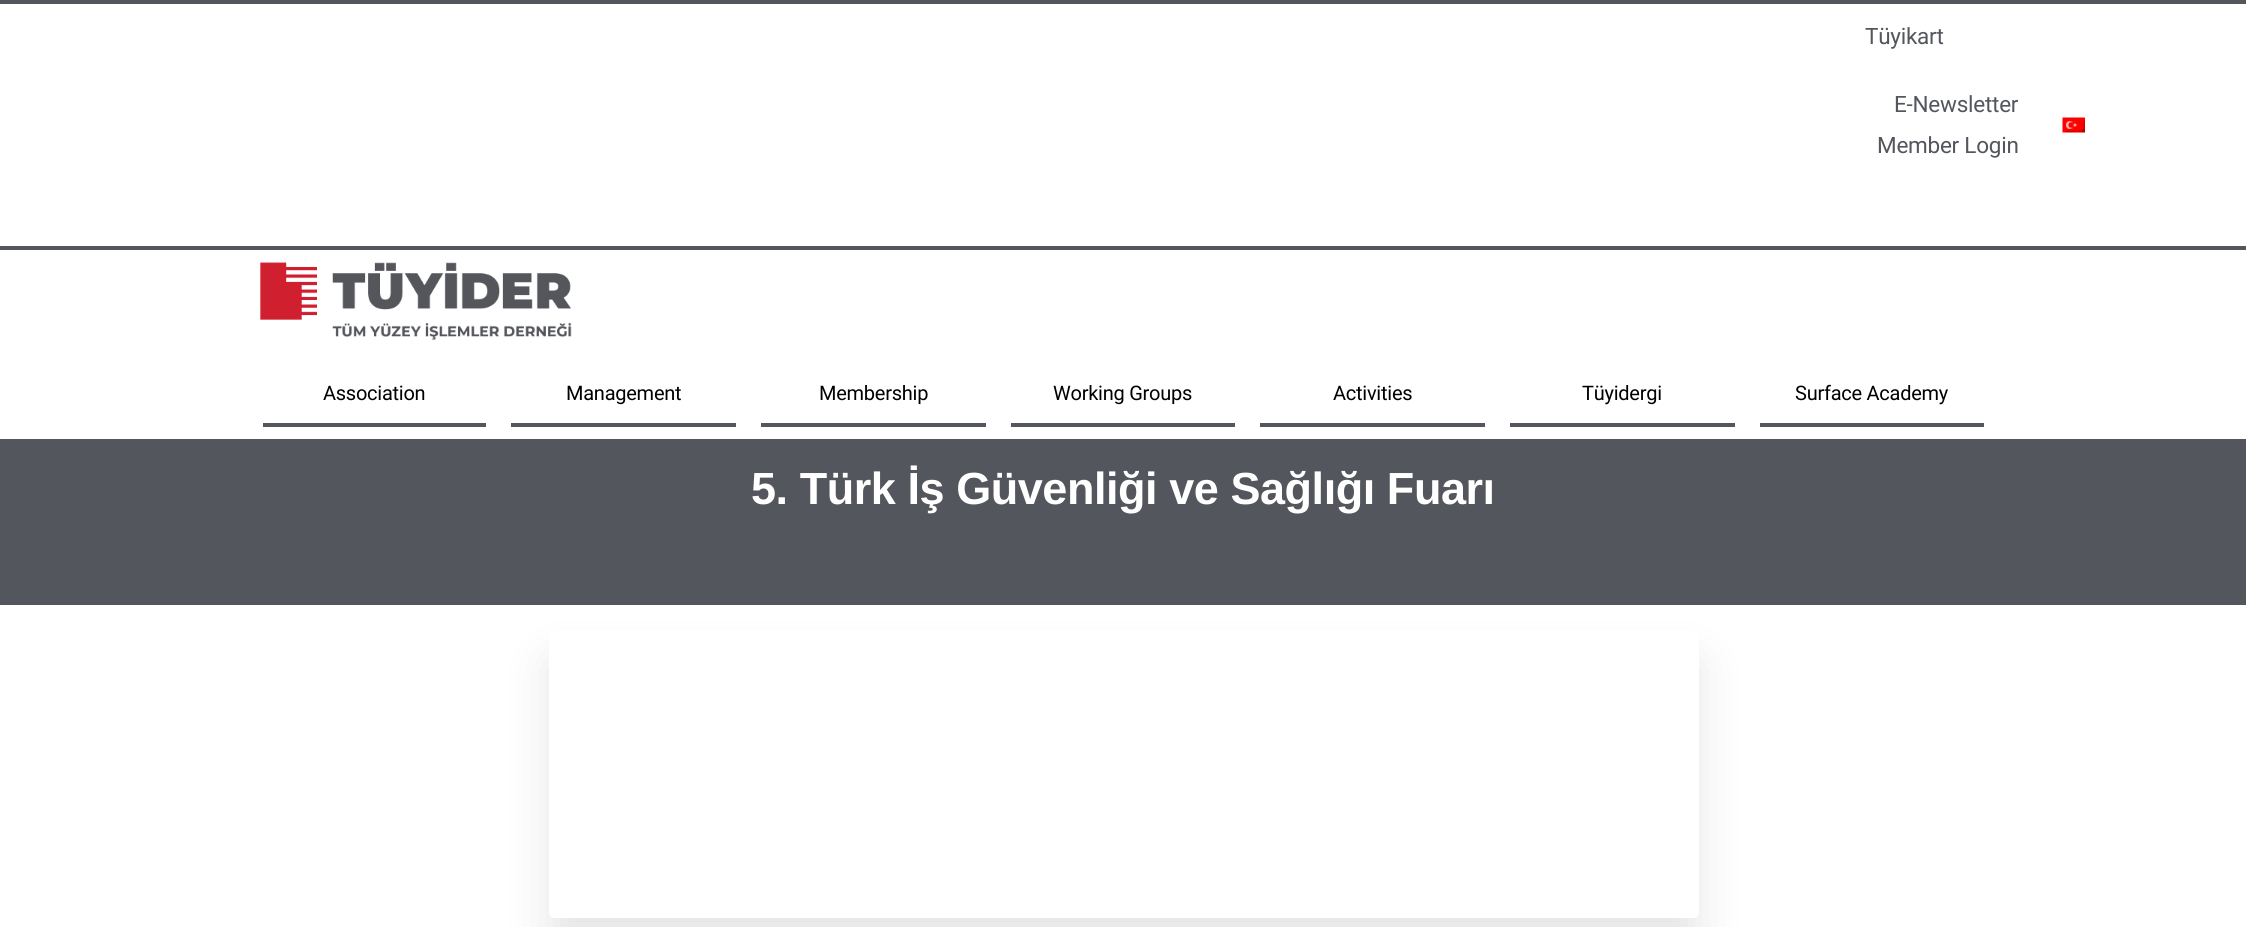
#include <cairo.h>
#include <math.h>
#include <stddef.h>

static cairo_t *ctx;

static void ink(unsigned color) {
    cairo_set_source_rgb(ctx, (color >> 16) / 255.0, (color >> 8 & 255) / 255.0, (color & 255) / 255.0);
}

static void write_spaced(double x, double y, const char *s, double letter, double word) {
    cairo_move_to(ctx, x, y);
    while (*s) {
        char ch[5] = {0};
        int n = 0;
        do ch[n++] = *s++; while ((*s & 0xC0) == 0x80);
        cairo_show_text(ctx, ch);
        cairo_rel_move_to(ctx, letter + word * (*ch == ' '), 0);
    }
}

static void block(double x, double y, double w, double h, unsigned color) {
    ink(color);
    cairo_rectangle(ctx, x, y, w, h);
    cairo_fill(ctx);
}

static void round_path(double x, double y, double w, double h, double r) {
    cairo_new_sub_path(ctx);
    cairo_arc(ctx, x + w - r, y + h - r, r, 0, M_PI / 2);
    cairo_arc(ctx, x + r, y + h - r, r, M_PI / 2, M_PI);
    cairo_arc(ctx, x + r, y + r, r, M_PI, 1.5 * M_PI);
    cairo_arc(ctx, x + w - r, y + r, r, 1.5 * M_PI, 2 * M_PI);
    cairo_close_path(ctx);
}

static void blur_box(double x, double y, double w, double h, double r, double blur, double alpha) {
    cairo_push_group_with_content(ctx, CAIRO_CONTENT_ALPHA);
    cairo_set_operator(ctx, CAIRO_OPERATOR_SOURCE);
    for (int i = 15; i >= -15 && fmin(w, h) + blur * i / 3 > 0; i -= 2) {
        double e = blur * i / 6;
        cairo_set_source_rgba(ctx, 0, 0, 0, alpha * erfc((i - 1) / 8.5) / 2);
        round_path(x - e, y - e, w + 2 * e, h + 2 * e, fmax(0, fmin(r + e + blur * .6, fmin(w, h) / 2 + e)));
        cairo_fill(ctx);
    }
    cairo_pattern_t *soft = cairo_pop_group(ctx);
    cairo_mask(ctx, soft);
    cairo_pattern_destroy(soft);
}

static void paste(const char *path, double x, double y, double w, double h) {
    cairo_surface_t *image = cairo_image_surface_create_from_png(path);
    cairo_save(ctx);
    cairo_set_source_surface(ctx, image, x, y);
    cairo_rectangle(ctx, x, y, w, h);
    cairo_fill(ctx);
    cairo_restore(ctx);
    cairo_surface_destroy(image);
}

int main(void) {
    cairo_surface_t *surface = cairo_image_surface_create(CAIRO_FORMAT_RGB24, 2246, 927);
    ctx = cairo_create(surface);
    cairo_font_options_t *options = cairo_font_options_create();
    cairo_font_options_set_hint_metrics(options, CAIRO_HINT_METRICS_OFF);
    cairo_font_options_set_hint_style(options, CAIRO_HINT_STYLE_NONE);
    cairo_set_font_options(ctx, options);
    cairo_set_miter_limit(ctx, 4);
    ink(0x54565d);
    cairo_paint(ctx);
    block(0, 4, 2246, 242, 0xffffff);
    cairo_select_font_face(ctx, "Roboto", CAIRO_FONT_SLANT_NORMAL, CAIRO_FONT_WEIGHT_NORMAL);
    cairo_set_font_size(ctx, 22.5);
    ink(0x54565d);
    write_spaced(1865, 44, "Tüyikart", -0.25, 0);
    write_spaced(1894, 112, "E-Newsletter", -0.25, 0);
    write_spaced(1877, 153, "Member Login", -0.25, 0);
    paste("pic1.png", 2062, 117, 23, 16);
    block(0, 250, 2246, 189, 0xffffff);
    paste("pic2.png", 260, 262, 312, 78);
    block(263, 423, 223, 4, 0x54565d);
    cairo_set_font_size(ctx, 20);
    ink(0x000000);
    write_spaced(323, 400, "Association", -0.25, 0);
    block(511, 423, 225, 4, 0x54565d);
    ink(0x000000);
    write_spaced(566, 400, "Management", -0.25, 0);
    block(761, 423, 225, 4, 0x54565d);
    ink(0x000000);
    write_spaced(819, 400, "Membership", -0.25, 0);
    block(1011, 423, 224, 4, 0x54565d);
    ink(0x000000);
    write_spaced(1053, 400, "Working Groups", -0.25, 0);
    block(1260, 423, 225, 4, 0x54565d);
    ink(0x000000);
    write_spaced(1333, 400, "Activities", -0.25, 0);
    block(1510, 423, 225, 4, 0x54565d);
    ink(0x000000);
    write_spaced(1582, 400, "Tüyidergi", -0.25, 0);
    block(1760, 423, 224, 4, 0x54565d);
    ink(0x000000);
    write_spaced(1795, 400, "Surface Academy", -0.25, 0);
    cairo_select_font_face(ctx, "Liberation Sans", CAIRO_FONT_SLANT_NORMAL, CAIRO_FONT_WEIGHT_BOLD);
    cairo_set_font_size(ctx, 45);
    ink(0xffffff);
    write_spaced(751, 504, "5. Türk İş Güvenliği ve Sağlığı Fuarı", -0.45, 0);
    block(0, 605, 2246, 322, 0xffffff);
    cairo_save(ctx);
    cairo_set_fill_rule(ctx, CAIRO_FILL_RULE_EVEN_ODD);
    cairo_new_path(ctx);
    cairo_move_to(ctx, 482, 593);
    cairo_line_to(ctx, 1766, 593);
    cairo_line_to(ctx, 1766, 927);
    cairo_line_to(ctx, 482, 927);
    cairo_close_path(ctx);
    cairo_move_to(ctx, 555, 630);
    cairo_line_to(ctx, 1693, 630);
    cairo_curve_to(ctx, 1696.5, 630, 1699, 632.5, 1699, 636);
    cairo_line_to(ctx, 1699, 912);
    cairo_curve_to(ctx, 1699, 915.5, 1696.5, 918, 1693, 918);
    cairo_line_to(ctx, 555, 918);
    cairo_curve_to(ctx, 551.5, 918, 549, 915.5, 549, 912);
    cairo_line_to(ctx, 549, 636);
    cairo_curve_to(ctx, 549, 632.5, 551.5, 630, 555, 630);
    cairo_close_path(ctx);
    cairo_clip(ctx);
    ink(0x000000);
    blur_box(549, 660, 1150, 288, 6, 22, 0.1);
    cairo_restore(ctx);
    cairo_surface_write_to_png(surface, "screenshot.png");
    cairo_font_options_destroy(options);
    cairo_destroy(ctx);
    cairo_surface_destroy(surface);
    return 0;
}
